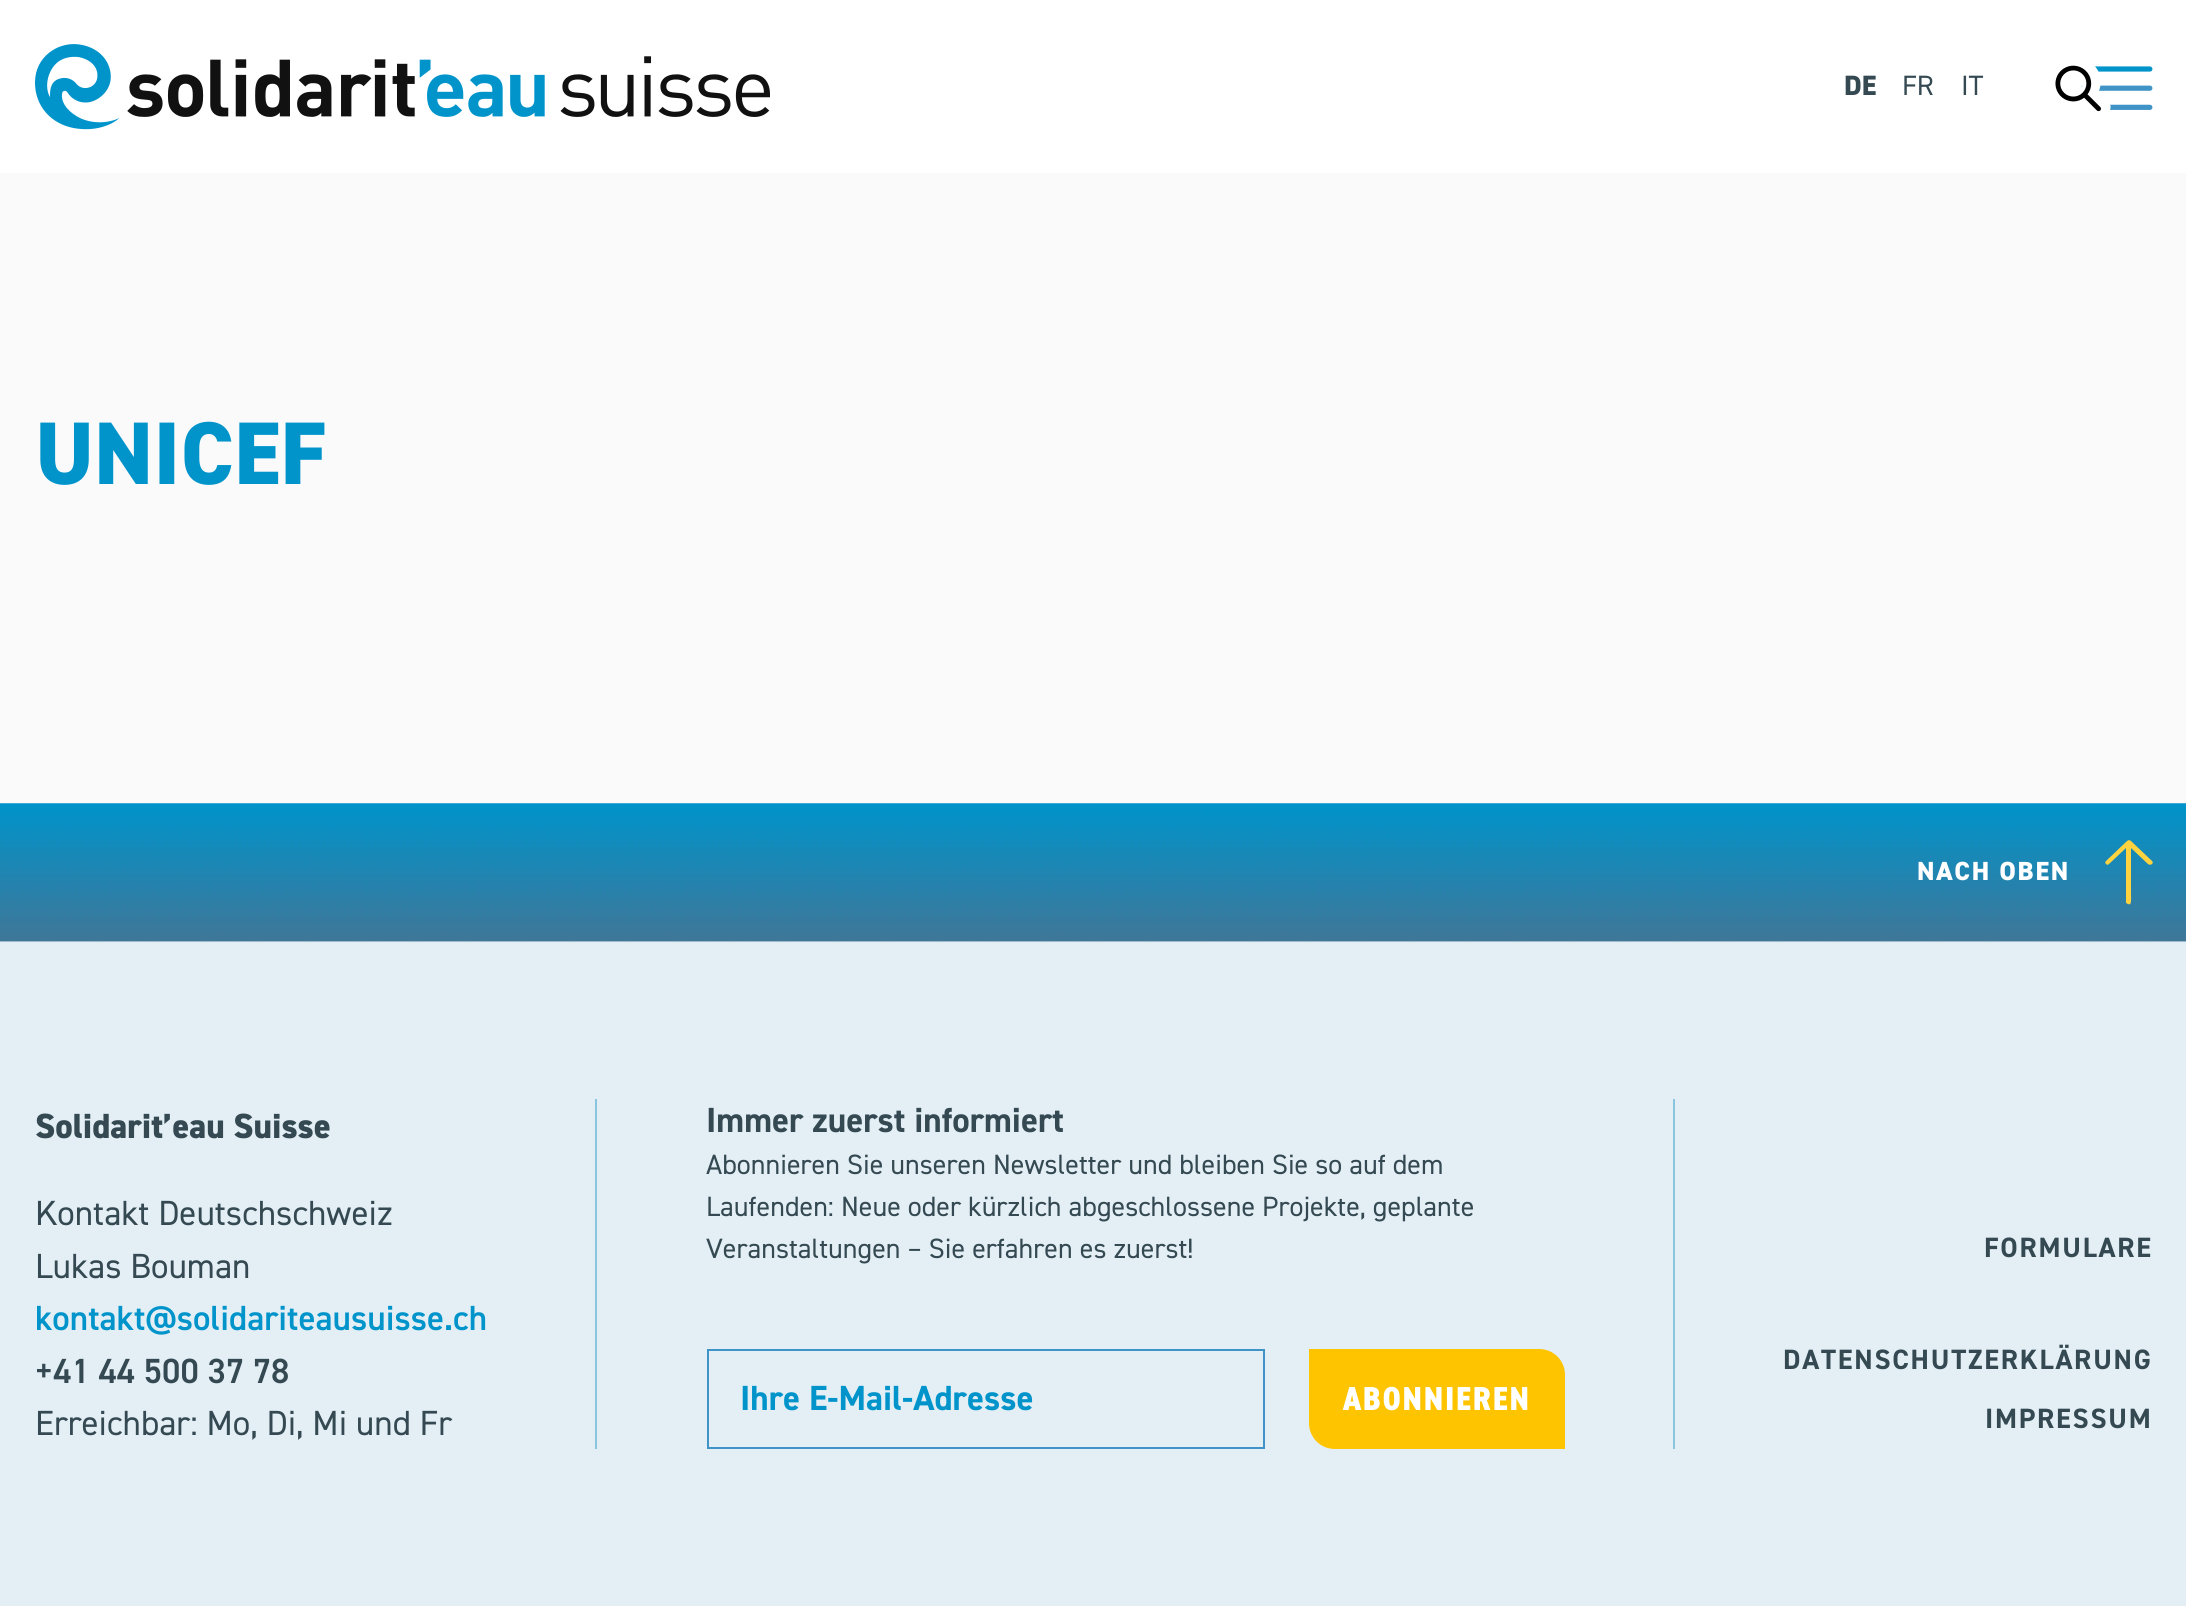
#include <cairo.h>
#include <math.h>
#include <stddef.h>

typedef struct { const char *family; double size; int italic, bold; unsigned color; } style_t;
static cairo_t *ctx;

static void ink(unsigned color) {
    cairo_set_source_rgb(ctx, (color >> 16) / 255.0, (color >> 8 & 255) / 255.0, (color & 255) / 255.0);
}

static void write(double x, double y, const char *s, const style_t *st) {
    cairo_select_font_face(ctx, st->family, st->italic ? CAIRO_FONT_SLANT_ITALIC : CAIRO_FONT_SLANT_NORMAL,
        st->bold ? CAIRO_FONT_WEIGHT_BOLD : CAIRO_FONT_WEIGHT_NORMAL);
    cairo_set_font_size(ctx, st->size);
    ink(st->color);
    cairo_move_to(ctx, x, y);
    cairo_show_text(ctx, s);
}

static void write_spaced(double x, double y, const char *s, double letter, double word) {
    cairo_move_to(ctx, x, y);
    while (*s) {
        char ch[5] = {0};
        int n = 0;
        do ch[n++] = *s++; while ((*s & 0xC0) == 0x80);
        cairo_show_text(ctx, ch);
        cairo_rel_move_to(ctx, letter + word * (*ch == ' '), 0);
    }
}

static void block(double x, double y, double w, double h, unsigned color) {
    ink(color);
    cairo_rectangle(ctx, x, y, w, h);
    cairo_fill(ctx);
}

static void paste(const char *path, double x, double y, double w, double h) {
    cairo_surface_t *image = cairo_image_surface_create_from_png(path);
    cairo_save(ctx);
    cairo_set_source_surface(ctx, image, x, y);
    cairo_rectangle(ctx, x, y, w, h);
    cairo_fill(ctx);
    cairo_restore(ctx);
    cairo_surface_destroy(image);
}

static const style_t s1 = {"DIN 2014 ExtraBold", 28, 0, 0, 0x344952};
static const style_t s2 = {"DIN 2014", 28, 0, 0, 0x344952};
static const style_t s3 = {"DIN 2014 ExtraBold", 89, 0, 0, 0x0094cb};
static const style_t s4 = {"DIN 2014 ExtraBold", 35, 0, 0, 0x344952};
static const style_t s5 = {"DIN 2014", 35, 0, 0, 0x344952};
static const style_t s6 = {"DIN 2014 SemiBold", 35, 0, 0, 0x0094cb};
static const style_t s7 = {"DIN 2014 SemiBold", 35, 0, 0, 0x344952};
static const style_t s8 = {"DIN 2014", 35, 0, 1, 0x344952};
static const style_t s9 = {"DIN 2014", 35, 0, 1, 0x0094cb};

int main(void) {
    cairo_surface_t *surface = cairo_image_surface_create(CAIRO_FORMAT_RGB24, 2186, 1606);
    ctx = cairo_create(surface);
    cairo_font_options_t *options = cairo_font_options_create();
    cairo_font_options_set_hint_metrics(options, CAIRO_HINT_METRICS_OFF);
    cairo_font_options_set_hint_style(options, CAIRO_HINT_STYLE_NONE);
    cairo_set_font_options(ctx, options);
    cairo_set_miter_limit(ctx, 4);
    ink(0xfafafa);
    cairo_paint(ctx);
    block(0, 0, 2186, 173, 0xffffff);
    paste("pic1.png", 35, 44, 735, 86);
    write(1844, 95, "DE", &s1);
    write(1902, 95, "FR", &s2);
    write(1961, 95, "IT", &s2);
    paste("pic2.png", 2055, 65, 98, 47);
    write(35, 484, "UNICEF", &s3);
    paste("pic3.png", 0, 803, 2186, 139);
    cairo_set_font_size(ctx, 26.25);
    ink(0xffffff);
    write_spaced(1917, 880, "NACH OBEN", 1.75, 0);
    ink(0xffd340);
    cairo_new_path(ctx);
    cairo_move_to(ctx, 2129, 840);
    cairo_line_to(ctx, 2131, 841);
    cairo_line_to(ctx, 2152, 861);
    cairo_curve_to(ctx, 2153, 862, 2153, 863, 2152, 864);
    cairo_curve_to(ctx, 2151, 865, 2149, 865, 2148, 864);
    cairo_line_to(ctx, 2131, 848);
    cairo_line_to(ctx, 2131, 893);
    cairo_curve_to(ctx, 2131, 899, 2132, 906, 2128, 904);
    cairo_line_to(ctx, 2126, 903);
    cairo_line_to(ctx, 2126, 848);
    cairo_line_to(ctx, 2109, 864);
    cairo_curve_to(ctx, 2108, 865, 2107, 865, 2106, 864);
    cairo_curve_to(ctx, 2105, 863, 2105, 862, 2106, 861);
    cairo_line_to(ctx, 2127, 841);
    cairo_close_path(ctx);
    cairo_fill(ctx);
    block(0, 942, 2186, 664, 0xe4eff5);
    write(35, 1138, "Solidarit’eau Suisse", &s4);
    write(35, 1225, "Kontakt Deutschschweiz", &s5);
    write(35, 1278, "Lukas Bouman", &s5);
    write(35, 1330, "kontakt@solidariteausuisse.ch", &s6);
    write(35, 1383, "+41 44 500 37 78", &s7);
    write(35, 1435, "Erreichbar: Mo, Di, Mi und Fr", &s5);
    block(595, 1099, 2, 350, 0x8ac5e0);
    write(706, 1132, "Immer zuerst informiert", &s8);
    write(706, 1174, "Abonnieren Sie unseren Newsletter und bleiben Sie so auf dem", &s2);
    write(706, 1216, "Laufenden: Neue oder kürzlich abgeschlossene Projekte, geplante", &s2);
    write(706, 1258, "Veranstaltungen – Sie erfahren es zuerst!", &s2);
    cairo_rectangle(ctx, 708, 1350, 556, 98);
    ink(0x4093c6);
    cairo_stroke(ctx);
    write(740, 1410, "Ihre E-Mail-Adresse", &s9);
    ink(0xffc400);
    cairo_new_path(ctx);
    cairo_move_to(ctx, 1310, 1350);
    cairo_line_to(ctx, 1539, 1350);
    cairo_curve_to(ctx, 1553, 1350, 1564, 1361, 1564, 1375);
    cairo_line_to(ctx, 1564, 1448);
    cairo_line_to(ctx, 1335, 1448);
    cairo_curve_to(ctx, 1321, 1448, 1310, 1437, 1310, 1423);
    cairo_close_path(ctx);
    cairo_fill_preserve(ctx);
    cairo_stroke(ctx);
    cairo_select_font_face(ctx, "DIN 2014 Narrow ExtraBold", CAIRO_FONT_SLANT_NORMAL, CAIRO_FONT_WEIGHT_NORMAL);
    cairo_set_font_size(ctx, 33.25);
    ink(0xffffff);
    write_spaced(1343, 1410, "ABONNIEREN", 1.75, 0);
    block(1673, 1099, 2, 350, 0x8ac5e0);
    cairo_select_font_face(ctx, "DIN 2014", CAIRO_FONT_SLANT_NORMAL, CAIRO_FONT_WEIGHT_BOLD);
    cairo_set_font_size(ctx, 28);
    ink(0x344952);
    write_spaced(1984, 1257, "FORMULARE", 1.75, 0);
    write_spaced(1783, 1369, "DATENSCHUTZERKLÄRUNG", 1.75, 0);
    write_spaced(1985, 1428, "IMPRESSUM", 1.75, 0);
    cairo_surface_write_to_png(surface, "screenshot.png");
    cairo_font_options_destroy(options);
    cairo_destroy(ctx);
    cairo_surface_destroy(surface);
    return 0;
}
